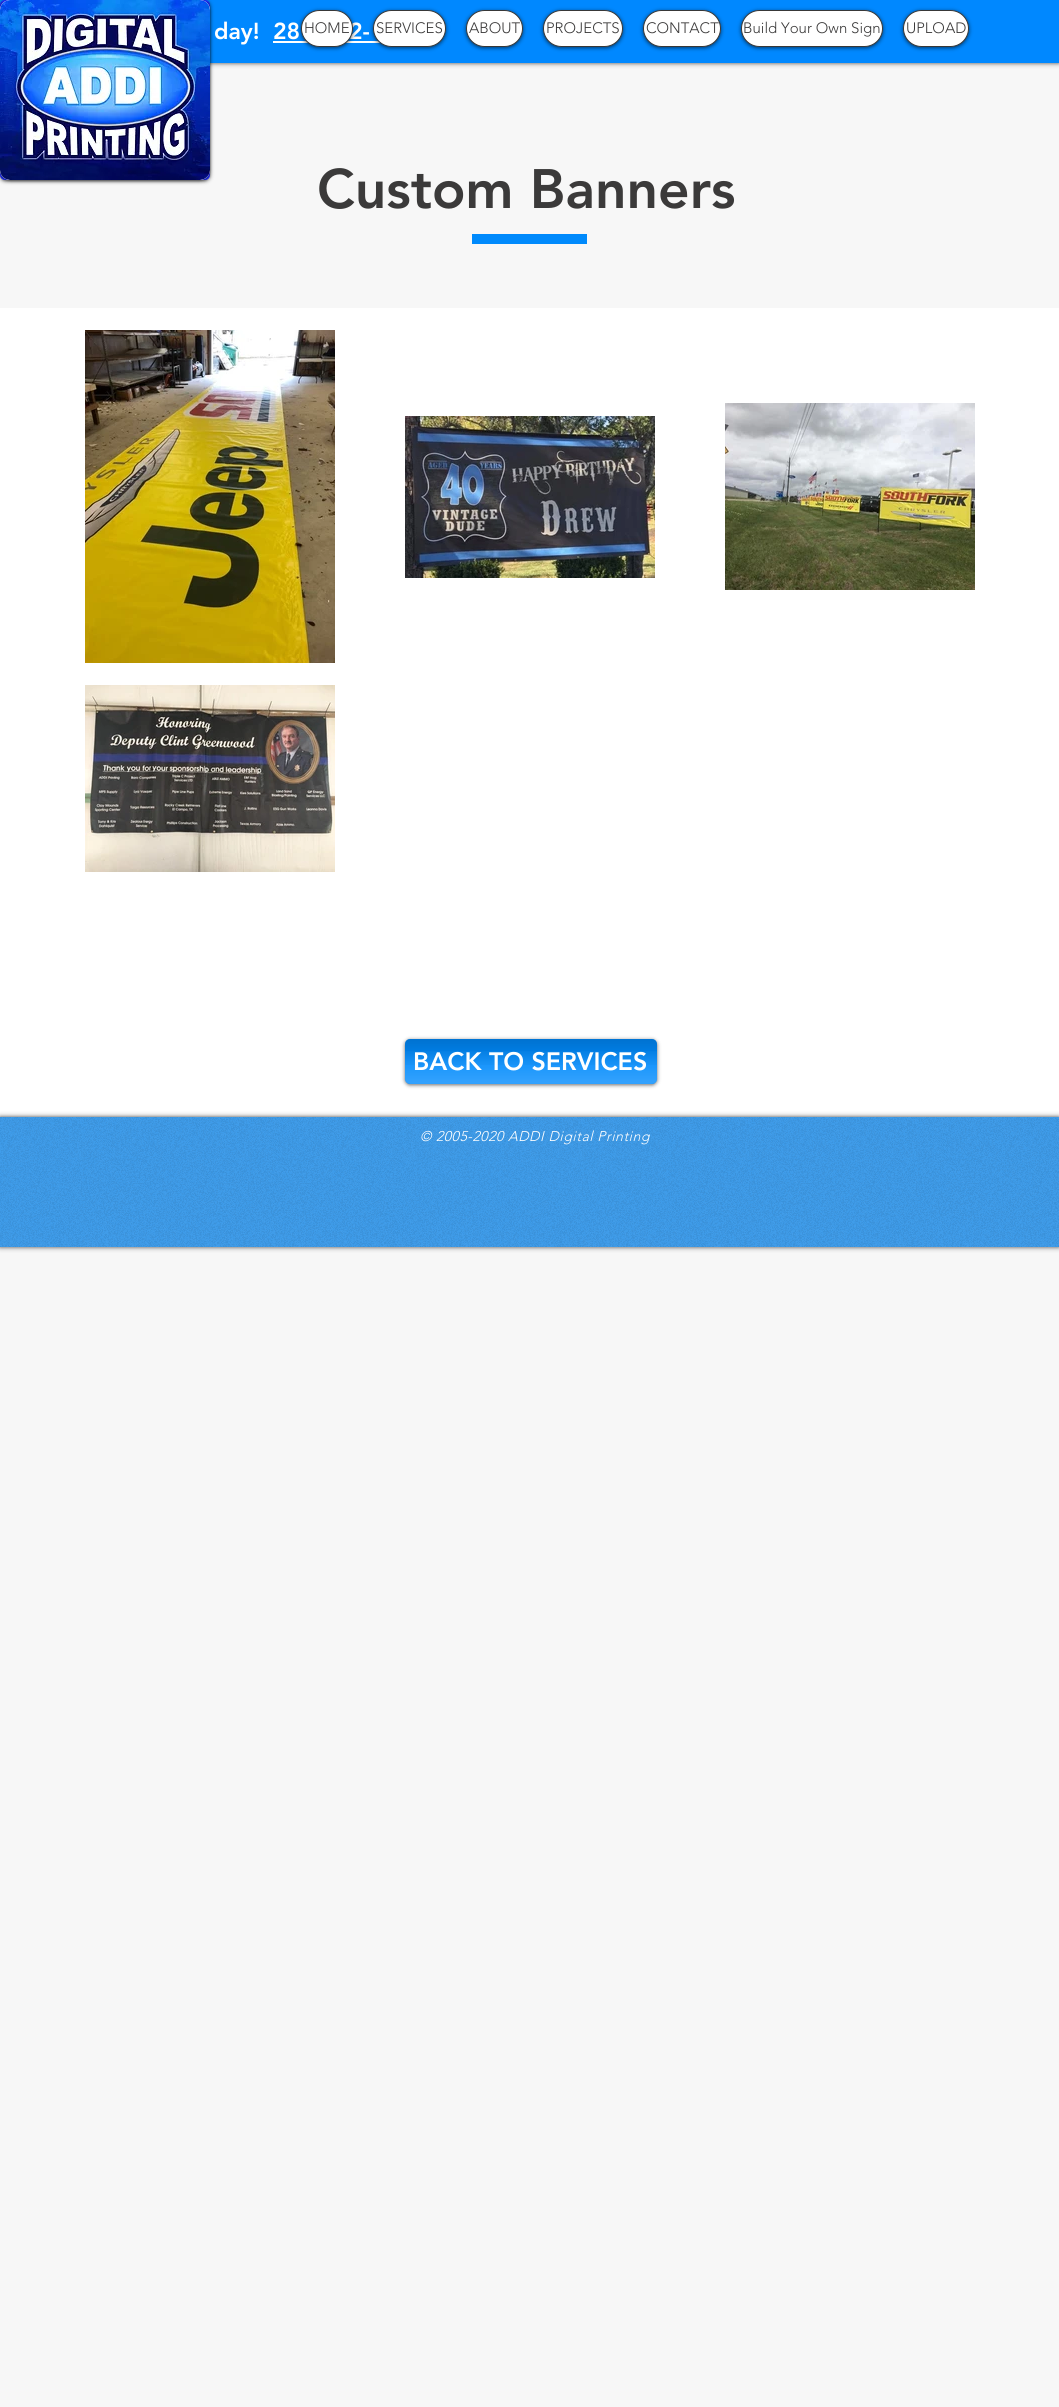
#include <cairo.h>
#include <math.h>
#include <stddef.h>

typedef struct { const char *family; double size; int italic, bold; unsigned color; } style_t;
static cairo_t *ctx;

static void ink(unsigned color) {
    cairo_set_source_rgb(ctx, (color >> 16) / 255.0, (color >> 8 & 255) / 255.0, (color & 255) / 255.0);
}

static void write(double x, double y, const char *s, const style_t *st) {
    cairo_select_font_face(ctx, st->family, st->italic ? CAIRO_FONT_SLANT_ITALIC : CAIRO_FONT_SLANT_NORMAL,
        st->bold ? CAIRO_FONT_WEIGHT_BOLD : CAIRO_FONT_WEIGHT_NORMAL);
    cairo_set_font_size(ctx, st->size);
    ink(st->color);
    cairo_move_to(ctx, x, y);
    cairo_show_text(ctx, s);
}

static void write_spaced(double x, double y, const char *s, double letter, double word) {
    cairo_move_to(ctx, x, y);
    while (*s) {
        char ch[5] = {0};
        int n = 0;
        do ch[n++] = *s++; while ((*s & 0xC0) == 0x80);
        cairo_show_text(ctx, ch);
        cairo_rel_move_to(ctx, letter + word * (*ch == ' '), 0);
    }
}

static void block(double x, double y, double w, double h, unsigned color) {
    ink(color);
    cairo_rectangle(ctx, x, y, w, h);
    cairo_fill(ctx);
}

static void round_path(double x, double y, double w, double h, double r) {
    cairo_new_sub_path(ctx);
    cairo_arc(ctx, x + w - r, y + h - r, r, 0, M_PI / 2);
    cairo_arc(ctx, x + r, y + h - r, r, M_PI / 2, M_PI);
    cairo_arc(ctx, x + r, y + r, r, M_PI, 1.5 * M_PI);
    cairo_arc(ctx, x + w - r, y + r, r, 1.5 * M_PI, 2 * M_PI);
    cairo_close_path(ctx);
}

static void blur_box(double x, double y, double w, double h, double r, double blur, double alpha) {
    cairo_push_group_with_content(ctx, CAIRO_CONTENT_ALPHA);
    cairo_set_operator(ctx, CAIRO_OPERATOR_SOURCE);
    for (int i = 15; i >= -15 && fmin(w, h) + blur * i / 3 > 0; i -= 2) {
        double e = blur * i / 6;
        cairo_set_source_rgba(ctx, 0, 0, 0, alpha * erfc((i - 1) / 8.5) / 2);
        round_path(x - e, y - e, w + 2 * e, h + 2 * e, fmax(0, fmin(r + e + blur * .6, fmin(w, h) / 2 + e)));
        cairo_fill(ctx);
    }
    cairo_pattern_t *soft = cairo_pop_group(ctx);
    cairo_mask(ctx, soft);
    cairo_pattern_destroy(soft);
}

static void paste(const char *path, double x, double y, double w, double h) {
    cairo_surface_t *image = cairo_image_surface_create_from_png(path);
    cairo_save(ctx);
    cairo_set_source_surface(ctx, image, x, y);
    cairo_rectangle(ctx, x, y, w, h);
    cairo_fill(ctx);
    cairo_restore(ctx);
    cairo_surface_destroy(image);
}

static const style_t s1 = {"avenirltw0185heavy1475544 Black", 23, 0, 0, 0xffffff};
static const style_t s2 = {"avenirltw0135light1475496 Light", 15, 0, 0, 0x3b3a3a};
static const style_t s3 = {"avenirltw0185heavy1475544 Black", 55, 0, 0, 0x3b3a3a};
static const style_t s4 = {"avenirltw0185heavy1475544 Black", 25, 0, 0, 0xffffff};

int main(void) {
    cairo_surface_t *surface = cairo_image_surface_create(CAIRO_FORMAT_RGB24, 1059, 2407);
    ctx = cairo_create(surface);
    cairo_font_options_t *options = cairo_font_options_create();
    cairo_font_options_set_hint_metrics(options, CAIRO_HINT_METRICS_OFF);
    cairo_font_options_set_hint_style(options, CAIRO_HINT_STYLE_NONE);
    cairo_set_font_options(ctx, options);
    cairo_set_miter_limit(ctx, 4);
    ink(0xf7f7f7);
    cairo_paint(ctx);
    ink(0x000000);
    blur_box(0, 0, 1059, 63, 0, 2.5, 0.7);
    block(0, 0, 1059, 63, 0x0088ff);
    ink(0x000000);
    blur_box(0, 1, 210, 180, 5, 2, 0.6);
    ink(0x1d2cf3);
    round_path(0, 0, 210, 180, 5);
    cairo_fill(ctx);
    paste("pic1.png", 0, 2, 210, 8);
    ink(0x000000);
    blur_box(0, 1, 210, 180, 10, 1.5, 0.5);
    ink(0xffffff);
    round_path(0, 0, 210, 180, 10);
    cairo_fill(ctx);
    paste("pic2.png", 0, 0, 210, 180);
    write(214, 39, "day!", &s1);
    write(273, 39, "28", &s1);
    block(273, 41, 107, 2, 0xffffff);
    write(349, 39, "2-", &s1);
    ink(0x000000);
    blur_box(301, 11, 52, 37, 18.5, 2, 0.6);
    ink(0xffffff);
    round_path(301.5, 10.5, 51, 36, 18);
    cairo_fill_preserve(ctx);
    ink(0x383838);
    cairo_set_line_width(ctx, 1);
    cairo_stroke(ctx);
    write(304, 33, "HOME", &s2);
    ink(0x000000);
    blur_box(373, 11, 73, 37, 18.5, 2, 0.6);
    ink(0xffffff);
    round_path(373.5, 10.5, 72, 36, 18);
    cairo_fill_preserve(ctx);
    ink(0x383838);
    cairo_stroke(ctx);
    write(376, 33, "SERVICES", &s2);
    ink(0x000000);
    blur_box(466, 11, 57, 37, 18.5, 2, 0.6);
    ink(0xffffff);
    round_path(466.5, 10.5, 56, 36, 18);
    cairo_fill_preserve(ctx);
    ink(0x383838);
    cairo_stroke(ctx);
    write(469, 33, "ABOUT", &s2);
    ink(0x000000);
    blur_box(543, 11, 80, 37, 18.5, 2, 0.6);
    ink(0xffffff);
    round_path(543.5, 10.5, 79, 36, 18);
    cairo_fill_preserve(ctx);
    ink(0x383838);
    cairo_stroke(ctx);
    write(546, 33, "PROJECTS", &s2);
    ink(0x000000);
    blur_box(643, 11, 78, 37, 18.5, 2, 0.6);
    ink(0xffffff);
    round_path(643.5, 10.5, 77, 36, 18);
    cairo_fill_preserve(ctx);
    ink(0x383838);
    cairo_stroke(ctx);
    write(646, 33, "CONTACT", &s2);
    ink(0x000000);
    blur_box(741, 11, 142, 37, 18.5, 2, 0.6);
    ink(0xffffff);
    round_path(741.5, 10.5, 141, 36, 18);
    cairo_fill_preserve(ctx);
    ink(0x383838);
    cairo_stroke(ctx);
    write(743, 33, "Build Your Own Sign", &s2);
    ink(0x000000);
    blur_box(903, 11, 66, 37, 18.5, 2, 0.6);
    ink(0xffffff);
    round_path(903.5, 10.5, 65, 36, 18);
    cairo_fill_preserve(ctx);
    ink(0x383838);
    cairo_stroke(ctx);
    write(906, 33, "UPLOAD", &s2);
    write(317, 208, "Custom Banners", &s3);
    block(472, 234, 115, 10, 0x008afc);
    block(0, 308, 1059, 808, 0xffffff);
    paste("pic3.png", 85, 330, 250, 333);
    paste("pic4.png", 405, 416, 250, 162);
    paste("pic5.png", 725, 403, 250, 187);
    paste("pic6.png", 85, 685, 250, 187);
    ink(0x000000);
    blur_box(405, 1040, 252, 45, 5, 2, 0.6);
    ink(0x008afc);
    round_path(405, 1039, 252, 45, 5);
    cairo_fill(ctx);
    paste("pic7.png", 405, 1039, 252, 26);
    paste("pic8.png", 405, 1051, 252, 33);
    write(413, 1070, "BACK TO SERVICES", &s4);
    ink(0x000000);
    blur_box(0, 1117, 1059, 130, 0, 2.5, 0.7);
    block(0, 1117, 1059, 130, 0x3d9be9);
    paste("pic9.png", 0, 1117, 1059, 130);
    cairo_select_font_face(ctx, "avenirltw0135light1475496 Light", CAIRO_FONT_SLANT_ITALIC, CAIRO_FONT_WEIGHT_NORMAL);
    cairo_set_font_size(ctx, 14);
    ink(0xffffff);
    write_spaced(420, 1141, "© 2005-2020 ADDI Digital Printing", 0.55, 0);
    cairo_surface_write_to_png(surface, "screenshot.png");
    cairo_font_options_destroy(options);
    cairo_destroy(ctx);
    cairo_surface_destroy(surface);
    return 0;
}
